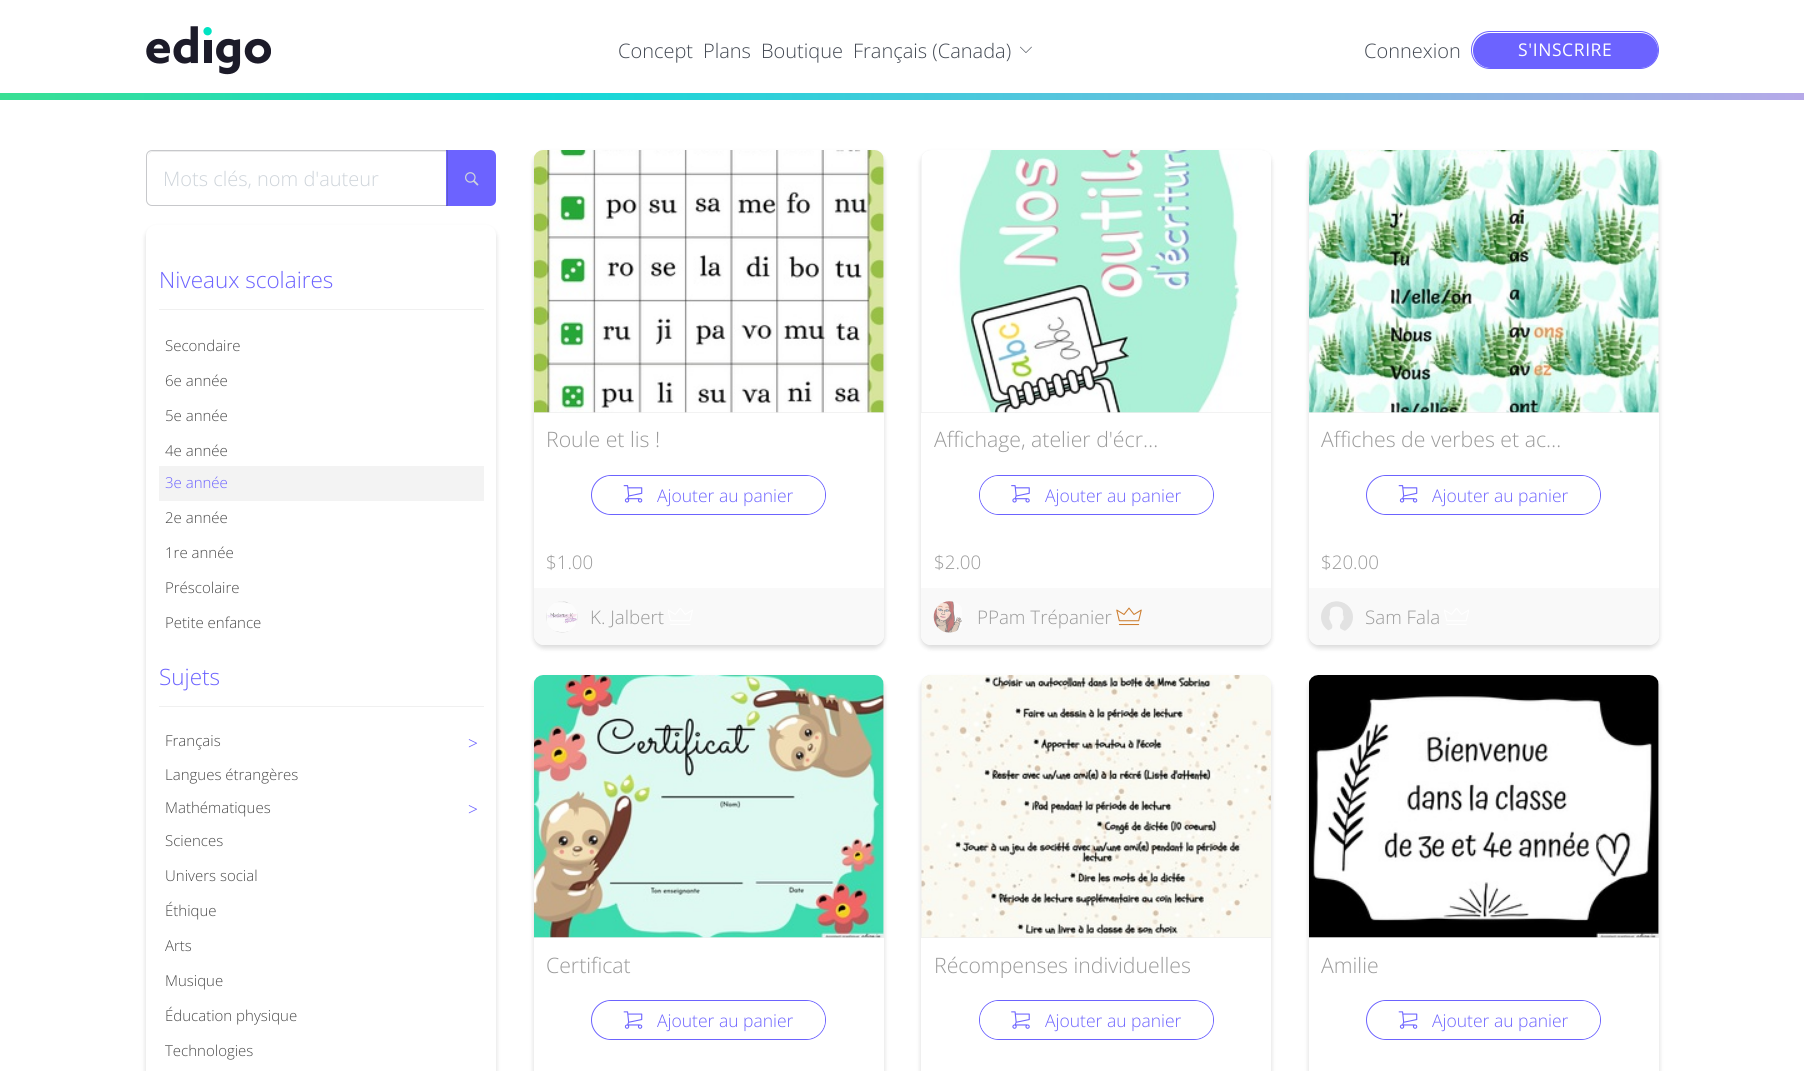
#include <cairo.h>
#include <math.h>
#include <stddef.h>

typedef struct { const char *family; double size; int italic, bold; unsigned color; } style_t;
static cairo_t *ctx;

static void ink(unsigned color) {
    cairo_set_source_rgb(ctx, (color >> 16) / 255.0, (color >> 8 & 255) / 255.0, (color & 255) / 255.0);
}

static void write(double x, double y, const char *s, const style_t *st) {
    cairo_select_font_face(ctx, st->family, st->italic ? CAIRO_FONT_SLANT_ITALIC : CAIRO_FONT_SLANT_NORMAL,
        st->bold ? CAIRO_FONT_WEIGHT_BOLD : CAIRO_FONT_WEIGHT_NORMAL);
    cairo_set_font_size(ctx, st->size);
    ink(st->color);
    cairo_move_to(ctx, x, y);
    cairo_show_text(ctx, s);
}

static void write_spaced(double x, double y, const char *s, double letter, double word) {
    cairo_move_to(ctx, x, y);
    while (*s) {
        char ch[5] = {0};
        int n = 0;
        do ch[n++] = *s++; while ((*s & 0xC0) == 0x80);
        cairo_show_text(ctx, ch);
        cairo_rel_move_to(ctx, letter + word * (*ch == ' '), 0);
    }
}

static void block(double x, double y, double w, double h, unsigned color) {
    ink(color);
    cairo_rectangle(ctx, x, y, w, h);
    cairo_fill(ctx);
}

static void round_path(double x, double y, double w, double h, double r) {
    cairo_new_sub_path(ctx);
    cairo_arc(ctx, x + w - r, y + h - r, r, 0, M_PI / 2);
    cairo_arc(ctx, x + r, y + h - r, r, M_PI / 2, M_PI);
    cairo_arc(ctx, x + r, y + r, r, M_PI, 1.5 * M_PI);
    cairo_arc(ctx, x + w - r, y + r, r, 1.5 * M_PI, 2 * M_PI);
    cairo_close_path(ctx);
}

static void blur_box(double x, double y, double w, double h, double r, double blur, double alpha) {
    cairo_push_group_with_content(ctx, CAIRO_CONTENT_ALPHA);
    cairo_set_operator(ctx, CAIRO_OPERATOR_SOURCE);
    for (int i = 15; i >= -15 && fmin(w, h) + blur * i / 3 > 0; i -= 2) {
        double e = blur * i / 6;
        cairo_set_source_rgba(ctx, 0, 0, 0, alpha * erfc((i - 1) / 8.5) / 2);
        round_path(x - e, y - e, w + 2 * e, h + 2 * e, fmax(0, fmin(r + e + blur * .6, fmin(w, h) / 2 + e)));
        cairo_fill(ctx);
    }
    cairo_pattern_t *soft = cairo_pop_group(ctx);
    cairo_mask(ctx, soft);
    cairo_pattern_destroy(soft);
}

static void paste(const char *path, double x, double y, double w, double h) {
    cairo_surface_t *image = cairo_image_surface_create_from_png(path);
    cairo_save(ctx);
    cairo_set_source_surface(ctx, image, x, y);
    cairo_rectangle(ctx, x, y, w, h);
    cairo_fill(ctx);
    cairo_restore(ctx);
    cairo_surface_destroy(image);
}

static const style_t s1 = {"Open Sans Light", 20, 0, 0, 0x434953};
static const style_t s2 = {"Open Sans Light", 20, 0, 0, 0xced4da};
static const style_t s3 = {"Open Sans Light", 22.5, 0, 0, 0x6c63ff};
static const style_t s4 = {"Open Sans Light", 15, 0, 0, 0x4a4a4a};
static const style_t s5 = {"Open Sans Light", 15, 0, 0, 0x6c63ff};
static const style_t s6 = {"Liberation Serif", 17.5, 0, 0, 0x6c63ff};
static const style_t s7 = {"Open Sans Light", 21.25, 0, 0, 0x9a9a9a};
static const style_t s8 = {"Open Sans Light", 17.5, 0, 0, 0x6c63ff};
static const style_t s9 = {"Open Sans Light", 18.75, 0, 0, 0x9a9a9a};

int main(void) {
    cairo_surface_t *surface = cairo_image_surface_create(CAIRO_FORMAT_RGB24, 1804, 1071);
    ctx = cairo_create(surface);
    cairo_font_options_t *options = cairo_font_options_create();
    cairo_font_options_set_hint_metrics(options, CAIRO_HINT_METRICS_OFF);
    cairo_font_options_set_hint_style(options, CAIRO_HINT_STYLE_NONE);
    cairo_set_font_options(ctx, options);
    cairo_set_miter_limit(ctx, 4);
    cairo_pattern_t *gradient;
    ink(0xffffff);
    cairo_paint(ctx);
    paste("pic1.png", 146, 26, 125, 49);
    write(618, 58, "Concept", &s1);
    write(703, 58, "Plans", &s1);
    write(761, 58, "Boutique", &s1);
    write(853, 58, "Français (Canada)", &s1);
    paste("pic2.png", 1020, 46, 12, 7);
    write(1364, 58, "Connexion", &s1);
    round_path(1471.5, 31.5, 187, 37, 18.5);
    ink(0x6c63ff);
    cairo_set_line_width(ctx, 1);
    cairo_stroke(ctx);
    round_path(1473, 33, 185, 35, 17.5);
    cairo_fill(ctx);
    cairo_select_font_face(ctx, "Open Sans", CAIRO_FONT_SLANT_NORMAL, CAIRO_FONT_WEIGHT_NORMAL);
    cairo_set_font_size(ctx, 17.5);
    ink(0xffffff);
    write_spaced(1518, 56, "S'INSCRIRE", 0.6, 0);
    gradient = cairo_pattern_create_linear(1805, 96, 0, 96);
    cairo_pattern_add_color_stop_rgba(gradient, 0, 0.714, 0.663, 0.91, 1);
    cairo_pattern_add_color_stop_rgba(gradient, 0.7, 0.067, 0.851, 0.839, 1);
    cairo_pattern_add_color_stop_rgba(gradient, 1, 0.224, 0.875, 0.576, 1);
    cairo_set_source(ctx, gradient);
    cairo_pattern_destroy(gradient);
    cairo_rectangle(ctx, 0, 93, 1804, 7);
    cairo_fill(ctx);
    ink(0xececec);
    cairo_new_path(ctx);
    cairo_move_to(ctx, 152, 152);
    cairo_line_to(ctx, 446, 152);
    cairo_line_to(ctx, 446, 151);
    cairo_line_to(ctx, 153, 151);
    cairo_curve_to(ctx, 149, 151, 148, 155, 148, 158);
    cairo_curve_to(ctx, 148, 155, 150, 152, 152, 152);
    cairo_close_path(ctx);
    cairo_fill(ctx);
    ink(0x6c63ff);
    cairo_new_path(ctx);
    cairo_move_to(ctx, 446, 150);
    cairo_line_to(ctx, 490, 150);
    cairo_curve_to(ctx, 493.5, 150, 496, 152.5, 496, 156);
    cairo_line_to(ctx, 496, 200);
    cairo_curve_to(ctx, 496, 203.5, 493.5, 206, 490, 206);
    cairo_line_to(ctx, 446, 206);
    cairo_close_path(ctx);
    cairo_fill(ctx);
    cairo_new_path(ctx);
    cairo_move_to(ctx, 152, 150.5);
    cairo_line_to(ctx, 447.5, 150.5);
    cairo_line_to(ctx, 447.5, 205.5);
    cairo_line_to(ctx, 152, 205.5);
    cairo_curve_to(ctx, 149, 205.5, 146.5, 203, 146.5, 200);
    cairo_line_to(ctx, 146.5, 156);
    cairo_curve_to(ctx, 146.5, 153, 149, 150.5, 152, 150.5);
    cairo_close_path(ctx);
    cairo_set_source_rgba(ctx, 0.263, 0.286, 0.325, 0.3);
    cairo_stroke(ctx);
    write(163, 186, "Mots clés, nom d'auteur", &s2);
    paste("pic3.png", 465, 172, 14, 14);
    ink(0x000000);
    blur_box(146, 228, 350, 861, 10, 2.5, 0.15);
    ink(0xffffff);
    round_path(146, 225, 350, 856, 10);
    cairo_fill(ctx);
    block(159, 309, 325, 1, 0xf0f0f0);
    write(159, 288, "Niveaux scolaires", &s3);
    write(165, 351, "Secondaire", &s4);
    write(165, 386, "6e année", &s4);
    write(165, 421, "5e année", &s4);
    write(165, 456, "4e année", &s4);
    block(159, 466, 325, 35, 0xf3f3f3);
    write(165, 488, "3e année", &s5);
    write(165, 523, "2e année", &s4);
    write(165, 558, "1re année", &s4);
    write(165, 593, "Préscolaire", &s4);
    write(165, 628, "Petite enfance", &s4);
    block(159, 706, 325, 1, 0xf0f0f0);
    write(159, 685, "Sujets", &s3);
    write(165, 746, "Français", &s4);
    write(468, 749, ">", &s6);
    write(165, 780, "Langues étrangères", &s4);
    write(165, 813, "Mathématiques", &s4);
    write(468, 815, ">", &s6);
    write(165, 846, "Sciences", &s4);
    write(165, 881, "Univers social", &s4);
    write(165, 916, "Éthique", &s4);
    write(165, 951, "Arts", &s4);
    write(165, 986, "Musique", &s4);
    write(165, 1021, "Éducation physique", &s4);
    write(165, 1056, "Technologies", &s4);
    ink(0x000000);
    blur_box(534, 153, 350, 495, 10, 2.5, 0.15);
    ink(0xffffff);
    round_path(534, 150, 350, 495, 10);
    cairo_fill(ctx);
    ink(0xeeeeee);
    cairo_new_path(ctx);
    cairo_move_to(ctx, 544, 150);
    cairo_line_to(ctx, 874, 150);
    cairo_curve_to(ctx, 879.5, 150, 884, 154.5, 884, 160);
    cairo_line_to(ctx, 884, 413);
    cairo_line_to(ctx, 534, 413);
    cairo_line_to(ctx, 534, 160);
    cairo_curve_to(ctx, 534, 154.5, 538.5, 150, 544, 150);
    cairo_close_path(ctx);
    cairo_fill(ctx);
    paste("pic4.png", 534, 150, 350, 263);
    write(546, 447, "Roule et lis !", &s7);
    round_path(591.5, 475.5, 234, 39, 19.5);
    ink(0x6c63ff);
    cairo_stroke(ctx);
    ink(0xffffff);
    round_path(593, 476, 232, 38, 19);
    cairo_fill(ctx);
    paste("pic5.png", 623, 485, 20, 18);
    write(657, 502, "Ajouter au panier", &s8);
    write(546, 569, "$1.00", &s9);
    ink(0xf9f9f9);
    cairo_new_path(ctx);
    cairo_move_to(ctx, 534, 588);
    cairo_line_to(ctx, 884, 588);
    cairo_line_to(ctx, 884, 635);
    cairo_curve_to(ctx, 884, 640.5, 879.5, 645, 874, 645);
    cairo_line_to(ctx, 544, 645);
    cairo_curve_to(ctx, 538.5, 645, 534, 640.5, 534, 635);
    cairo_close_path(ctx);
    cairo_fill(ctx);
    paste("pic6.png", 546, 601, 32, 32);
    write(590, 624, "K. Jalbert", &s9);
    paste("pic7.png", 668, 608, 25, 17);
    ink(0x000000);
    blur_box(921, 153, 350, 495, 10, 2.5, 0.15);
    ink(0xffffff);
    round_path(921, 150, 350, 495, 10);
    cairo_fill(ctx);
    ink(0xeeeeee);
    cairo_new_path(ctx);
    cairo_move_to(ctx, 931, 150);
    cairo_line_to(ctx, 1261, 150);
    cairo_curve_to(ctx, 1266.5, 150, 1271, 154.5, 1271, 160);
    cairo_line_to(ctx, 1271, 413);
    cairo_line_to(ctx, 921, 413);
    cairo_line_to(ctx, 921, 160);
    cairo_curve_to(ctx, 921, 154.5, 925.5, 150, 931, 150);
    cairo_close_path(ctx);
    cairo_fill(ctx);
    paste("pic8.png", 921, 150, 350, 263);
    write(934, 447, "Affichage, atelier d'écr…", &s7);
    round_path(979.5, 475.5, 234, 39, 19.5);
    ink(0x6c63ff);
    cairo_stroke(ctx);
    ink(0xffffff);
    round_path(980, 476, 233, 38, 19);
    cairo_fill(ctx);
    paste("pic9.png", 1011, 485, 19, 18);
    write(1045, 502, "Ajouter au panier", &s8);
    write(934, 569, "$2.00", &s9);
    ink(0xf9f9f9);
    cairo_new_path(ctx);
    cairo_move_to(ctx, 921, 588);
    cairo_line_to(ctx, 1271, 588);
    cairo_line_to(ctx, 1271, 635);
    cairo_curve_to(ctx, 1271, 640.5, 1266.5, 645, 1261, 645);
    cairo_line_to(ctx, 931, 645);
    cairo_curve_to(ctx, 925.5, 645, 921, 640.5, 921, 635);
    cairo_close_path(ctx);
    cairo_fill(ctx);
    paste("pic10.png", 933, 601, 29, 32);
    write(977, 624, "PPam Trépanier", &s9);
    paste("pic11.png", 1116, 607, 26, 19);
    ink(0x000000);
    blur_box(1309, 153, 350, 495, 10, 2.5, 0.15);
    ink(0xffffff);
    round_path(1309, 150, 350, 495, 10);
    cairo_fill(ctx);
    ink(0xeeeeee);
    cairo_new_path(ctx);
    cairo_move_to(ctx, 1319, 150);
    cairo_line_to(ctx, 1649, 150);
    cairo_curve_to(ctx, 1654.5, 150, 1659, 154.5, 1659, 160);
    cairo_line_to(ctx, 1659, 413);
    cairo_line_to(ctx, 1309, 413);
    cairo_line_to(ctx, 1309, 160);
    cairo_curve_to(ctx, 1309, 154.5, 1313.5, 150, 1319, 150);
    cairo_close_path(ctx);
    cairo_fill(ctx);
    paste("pic12.png", 1309, 150, 350, 263);
    write(1321, 447, "Affiches de verbes et ac…", &s7);
    round_path(1366.5, 475.5, 234, 39, 19.5);
    ink(0x6c63ff);
    cairo_stroke(ctx);
    ink(0xffffff);
    round_path(1368, 476, 232, 38, 19);
    cairo_fill(ctx);
    paste("pic5.png", 1398, 485, 20, 18);
    write(1432, 502, "Ajouter au panier", &s8);
    write(1321, 569, "$20.00", &s9);
    ink(0xf9f9f9);
    cairo_new_path(ctx);
    cairo_move_to(ctx, 1309, 588);
    cairo_line_to(ctx, 1659, 588);
    cairo_line_to(ctx, 1659, 635);
    cairo_curve_to(ctx, 1659, 640.5, 1654.5, 645, 1649, 645);
    cairo_line_to(ctx, 1319, 645);
    cairo_curve_to(ctx, 1313.5, 645, 1309, 640.5, 1309, 635);
    cairo_close_path(ctx);
    cairo_fill(ctx);
    paste("pic13.png", 1321, 601, 32, 30);
    write(1365, 624, "Sam Fala", &s9);
    paste("pic14.png", 1444, 608, 25, 17);
    ink(0x000000);
    blur_box(534, 678, 350, 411, 10, 2.5, 0.15);
    ink(0xffffff);
    round_path(534, 675, 350, 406, 10);
    cairo_fill(ctx);
    ink(0xeeeeee);
    cairo_new_path(ctx);
    cairo_move_to(ctx, 544, 675);
    cairo_line_to(ctx, 874, 675);
    cairo_curve_to(ctx, 879.5, 675, 884, 679.5, 884, 685);
    cairo_line_to(ctx, 884, 938);
    cairo_line_to(ctx, 534, 938);
    cairo_line_to(ctx, 534, 685);
    cairo_curve_to(ctx, 534, 679.5, 538.5, 675, 544, 675);
    cairo_close_path(ctx);
    cairo_fill(ctx);
    paste("pic15.png", 534, 675, 350, 263);
    write(546, 973, "Certificat", &s7);
    round_path(591.5, 1000.5, 234, 39, 19.5);
    ink(0x6c63ff);
    cairo_stroke(ctx);
    ink(0xffffff);
    round_path(593, 1001, 232, 38, 19);
    cairo_fill(ctx);
    paste("pic16.png", 623, 1011, 20, 18);
    write(657, 1027, "Ajouter au panier", &s8);
    ink(0x000000);
    blur_box(921, 678, 350, 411, 10, 2.5, 0.15);
    ink(0xffffff);
    round_path(921, 675, 350, 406, 10);
    cairo_fill(ctx);
    ink(0xeeeeee);
    cairo_new_path(ctx);
    cairo_move_to(ctx, 931, 675);
    cairo_line_to(ctx, 1261, 675);
    cairo_curve_to(ctx, 1266.5, 675, 1271, 679.5, 1271, 685);
    cairo_line_to(ctx, 1271, 938);
    cairo_line_to(ctx, 921, 938);
    cairo_line_to(ctx, 921, 685);
    cairo_curve_to(ctx, 921, 679.5, 925.5, 675, 931, 675);
    cairo_close_path(ctx);
    cairo_fill(ctx);
    paste("pic17.png", 921, 675, 350, 263);
    write(934, 973, "Récompenses individuelles", &s7);
    round_path(979.5, 1000.5, 234, 39, 19.5);
    ink(0x6c63ff);
    cairo_stroke(ctx);
    ink(0xffffff);
    round_path(980, 1001, 233, 38, 19);
    cairo_fill(ctx);
    paste("pic18.png", 1011, 1011, 19, 18);
    write(1045, 1027, "Ajouter au panier", &s8);
    ink(0x000000);
    blur_box(1309, 678, 350, 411, 10, 2.5, 0.15);
    ink(0xffffff);
    round_path(1309, 675, 350, 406, 10);
    cairo_fill(ctx);
    ink(0xeeeeee);
    cairo_new_path(ctx);
    cairo_move_to(ctx, 1319, 675);
    cairo_line_to(ctx, 1649, 675);
    cairo_curve_to(ctx, 1654.5, 675, 1659, 679.5, 1659, 685);
    cairo_line_to(ctx, 1659, 938);
    cairo_line_to(ctx, 1309, 938);
    cairo_line_to(ctx, 1309, 685);
    cairo_curve_to(ctx, 1309, 679.5, 1313.5, 675, 1319, 675);
    cairo_close_path(ctx);
    cairo_fill(ctx);
    paste("pic19.png", 1309, 675, 350, 263);
    write(1321, 973, "Amilie", &s7);
    round_path(1366.5, 1000.5, 234, 39, 19.5);
    ink(0x6c63ff);
    cairo_stroke(ctx);
    ink(0xffffff);
    round_path(1368, 1001, 232, 38, 19);
    cairo_fill(ctx);
    paste("pic16.png", 1398, 1011, 20, 18);
    write(1432, 1027, "Ajouter au panier", &s8);
    cairo_surface_write_to_png(surface, "screenshot.png");
    cairo_font_options_destroy(options);
    cairo_destroy(ctx);
    cairo_surface_destroy(surface);
    return 0;
}
